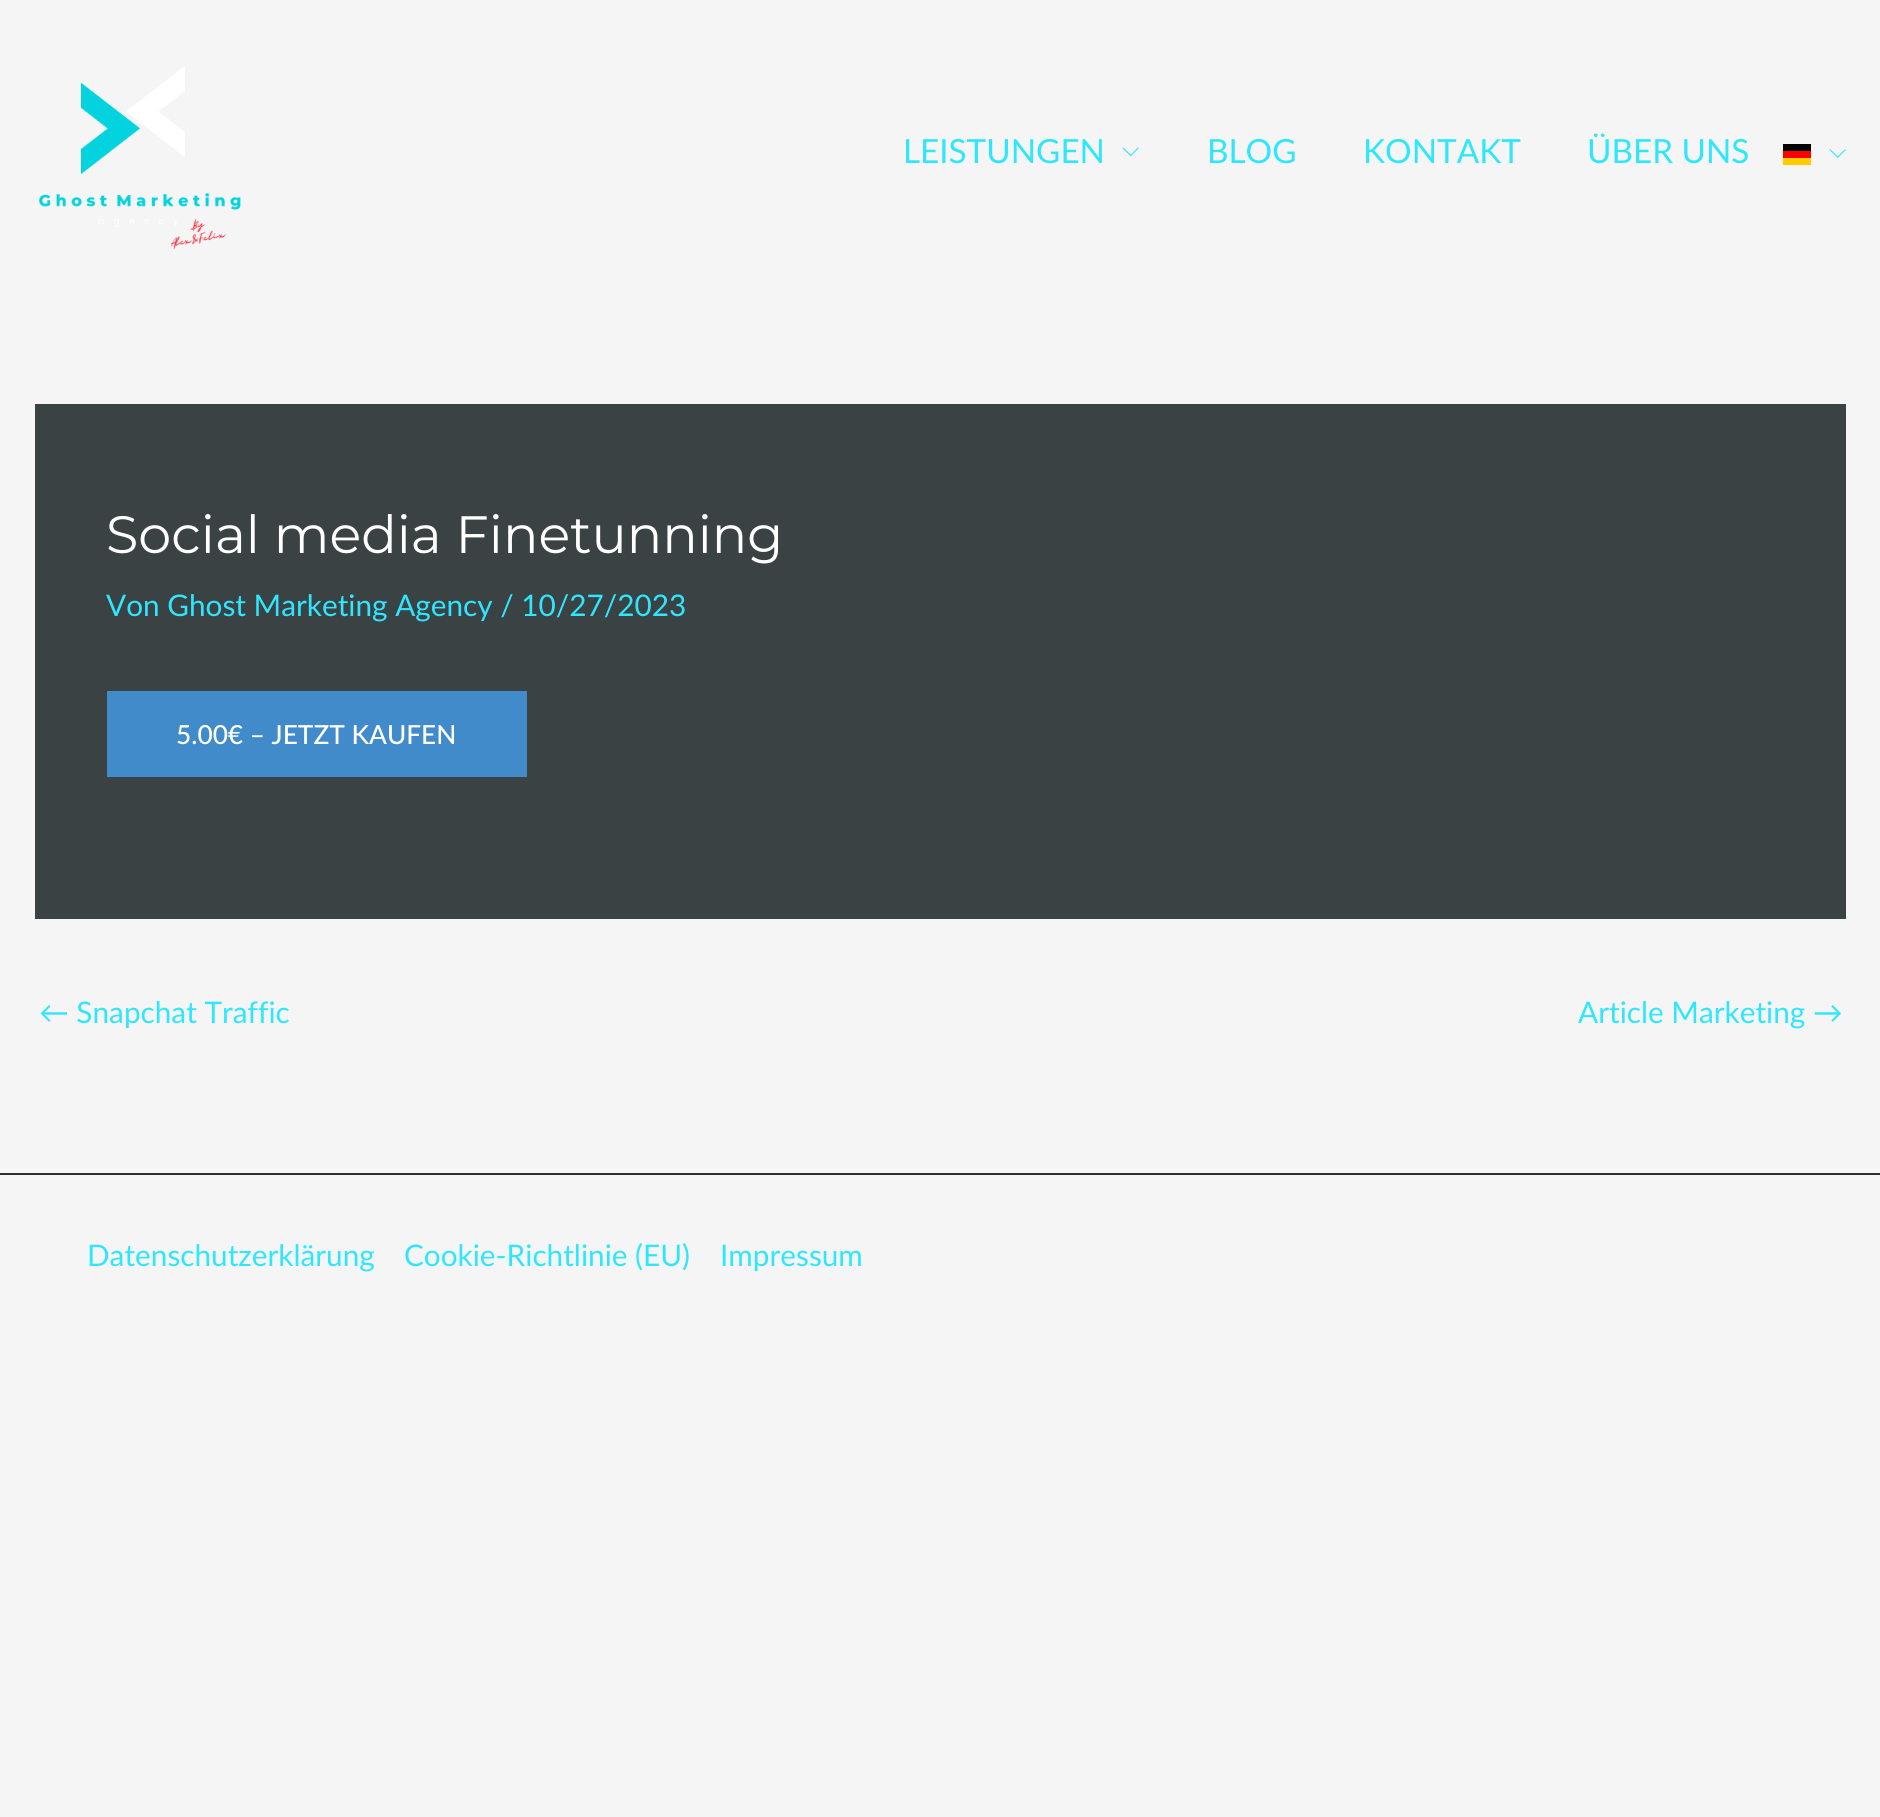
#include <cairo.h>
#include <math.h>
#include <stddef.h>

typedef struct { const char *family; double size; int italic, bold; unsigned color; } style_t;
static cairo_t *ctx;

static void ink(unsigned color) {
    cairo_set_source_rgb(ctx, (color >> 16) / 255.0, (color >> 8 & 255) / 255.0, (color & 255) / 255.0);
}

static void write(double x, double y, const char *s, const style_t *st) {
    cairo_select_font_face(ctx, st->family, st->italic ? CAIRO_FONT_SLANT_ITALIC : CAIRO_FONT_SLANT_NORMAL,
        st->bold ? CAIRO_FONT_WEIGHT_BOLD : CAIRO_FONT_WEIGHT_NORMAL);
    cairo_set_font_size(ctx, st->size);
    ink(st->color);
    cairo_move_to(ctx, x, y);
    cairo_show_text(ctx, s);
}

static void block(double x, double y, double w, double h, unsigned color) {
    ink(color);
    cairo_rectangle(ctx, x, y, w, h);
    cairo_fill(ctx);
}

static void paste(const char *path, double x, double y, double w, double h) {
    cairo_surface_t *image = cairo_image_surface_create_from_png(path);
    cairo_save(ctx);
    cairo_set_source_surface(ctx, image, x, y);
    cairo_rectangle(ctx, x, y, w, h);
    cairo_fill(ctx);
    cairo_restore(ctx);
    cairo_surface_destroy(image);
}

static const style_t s1 = {"Lato", 33.25, 0, 0, 0x2fe6ff};
static const style_t s2 = {"Montserrat", 52.5, 0, 0, 0xffffff};
static const style_t s3 = {"Lato", 29.75, 0, 0, 0x2fe6ff};
static const style_t s4 = {"Lato Medium", 26.25, 0, 0, 0xffffff};

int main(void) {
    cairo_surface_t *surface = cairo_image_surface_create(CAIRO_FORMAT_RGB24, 1880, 1817);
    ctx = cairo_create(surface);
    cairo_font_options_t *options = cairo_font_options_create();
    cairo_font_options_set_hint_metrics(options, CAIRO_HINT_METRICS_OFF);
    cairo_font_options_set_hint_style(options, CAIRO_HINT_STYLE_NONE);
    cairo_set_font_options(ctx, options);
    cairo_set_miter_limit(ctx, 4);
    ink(0xf5f5f5);
    cairo_paint(ctx);
    paste("pic1.png", 39, 66, 202, 184);
    write(903, 163, "LEISTUNGEN", &s1);
    paste("pic2.png", 1122, 147, 17, 10);
    write(1207, 163, "BLOG", &s1);
    write(1363, 163, "KONTAKT", &s1);
    write(1587, 163, "ÜBER UNS", &s1);
    block(1783, 144, 28, 7, 0x000000);
    block(1783, 151, 28, 7, 0xff0000);
    paste("pic3.png", 1829, 149, 17, 9);
    block(1783, 158, 28, 7, 0xffcc00);
    block(35, 404, 1811, 515, 0x3b4244);
    write(106, 553, "Social media Finetunning", &s2);
    write(106, 616, "Von Ghost Marketing Agency / 10/27/2023", &s3);
    block(107, 691, 420, 86, 0x428bca);
    write(176, 744, "5.00€ – JETZT KAUFEN", &s4);
    write(39, 1023, "← Snapchat Traffic", &s3);
    write(1578, 1023, "Article Marketing →", &s3);
    block(0, 1173, 1880, 2, 0x2e2e2e);
    write(87, 1266, "Datenschutzerklärung", &s3);
    write(404, 1266, "Cookie-Richtlinie (EU)", &s3);
    write(720, 1266, "Impressum", &s3);
    cairo_surface_write_to_png(surface, "screenshot.png");
    cairo_font_options_destroy(options);
    cairo_destroy(ctx);
    cairo_surface_destroy(surface);
    return 0;
}
